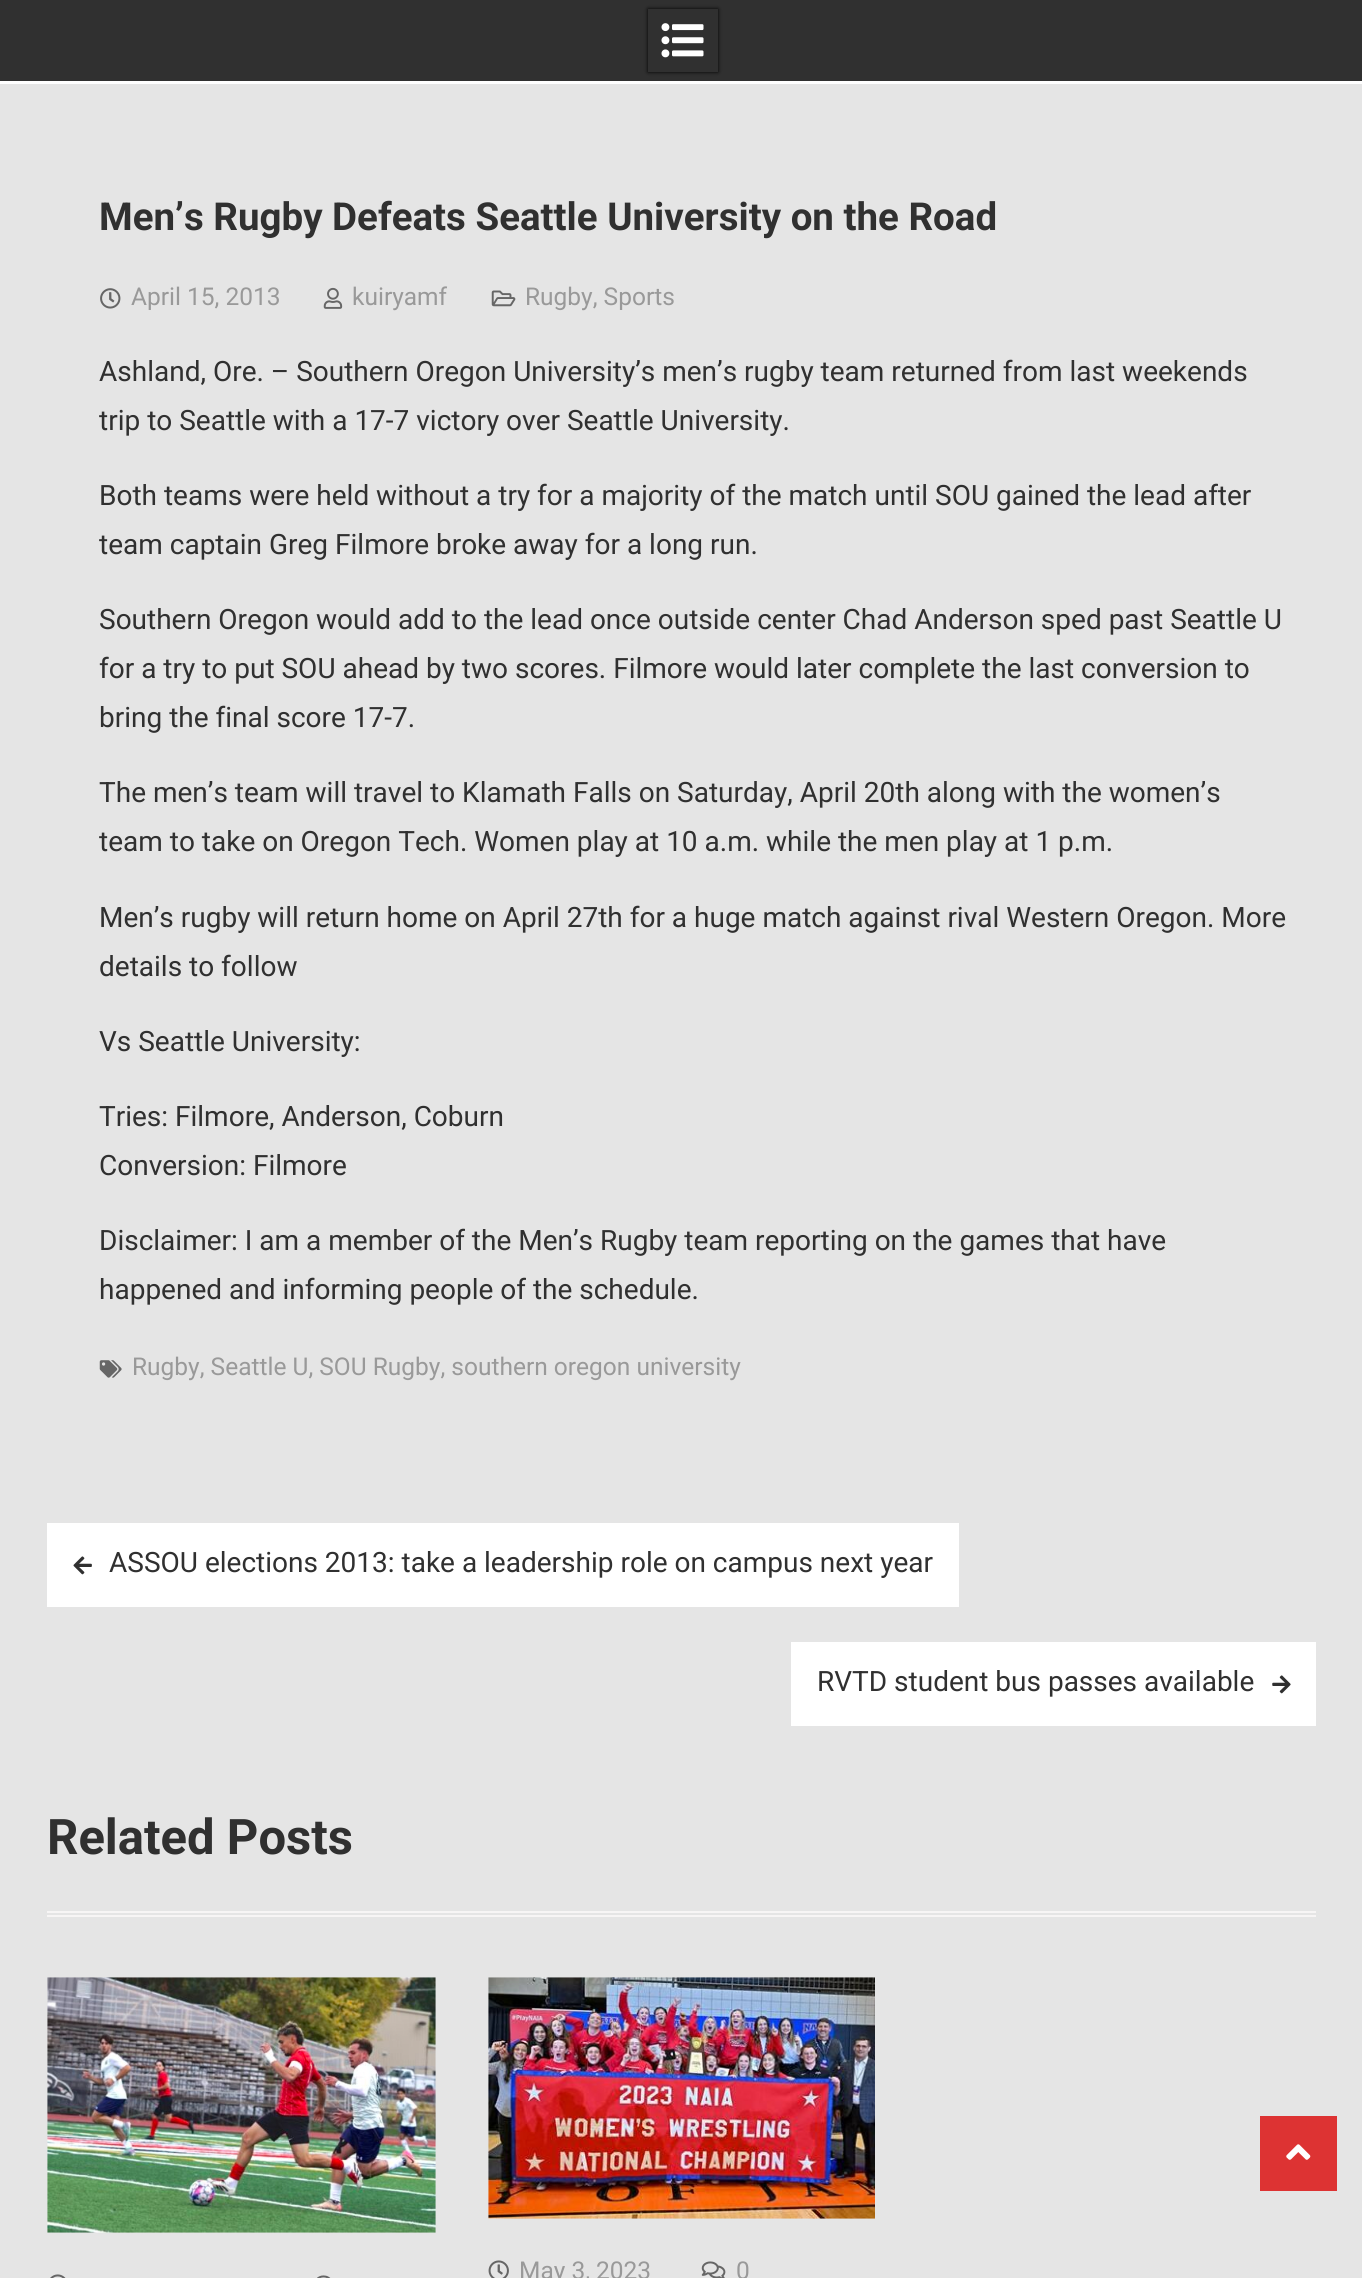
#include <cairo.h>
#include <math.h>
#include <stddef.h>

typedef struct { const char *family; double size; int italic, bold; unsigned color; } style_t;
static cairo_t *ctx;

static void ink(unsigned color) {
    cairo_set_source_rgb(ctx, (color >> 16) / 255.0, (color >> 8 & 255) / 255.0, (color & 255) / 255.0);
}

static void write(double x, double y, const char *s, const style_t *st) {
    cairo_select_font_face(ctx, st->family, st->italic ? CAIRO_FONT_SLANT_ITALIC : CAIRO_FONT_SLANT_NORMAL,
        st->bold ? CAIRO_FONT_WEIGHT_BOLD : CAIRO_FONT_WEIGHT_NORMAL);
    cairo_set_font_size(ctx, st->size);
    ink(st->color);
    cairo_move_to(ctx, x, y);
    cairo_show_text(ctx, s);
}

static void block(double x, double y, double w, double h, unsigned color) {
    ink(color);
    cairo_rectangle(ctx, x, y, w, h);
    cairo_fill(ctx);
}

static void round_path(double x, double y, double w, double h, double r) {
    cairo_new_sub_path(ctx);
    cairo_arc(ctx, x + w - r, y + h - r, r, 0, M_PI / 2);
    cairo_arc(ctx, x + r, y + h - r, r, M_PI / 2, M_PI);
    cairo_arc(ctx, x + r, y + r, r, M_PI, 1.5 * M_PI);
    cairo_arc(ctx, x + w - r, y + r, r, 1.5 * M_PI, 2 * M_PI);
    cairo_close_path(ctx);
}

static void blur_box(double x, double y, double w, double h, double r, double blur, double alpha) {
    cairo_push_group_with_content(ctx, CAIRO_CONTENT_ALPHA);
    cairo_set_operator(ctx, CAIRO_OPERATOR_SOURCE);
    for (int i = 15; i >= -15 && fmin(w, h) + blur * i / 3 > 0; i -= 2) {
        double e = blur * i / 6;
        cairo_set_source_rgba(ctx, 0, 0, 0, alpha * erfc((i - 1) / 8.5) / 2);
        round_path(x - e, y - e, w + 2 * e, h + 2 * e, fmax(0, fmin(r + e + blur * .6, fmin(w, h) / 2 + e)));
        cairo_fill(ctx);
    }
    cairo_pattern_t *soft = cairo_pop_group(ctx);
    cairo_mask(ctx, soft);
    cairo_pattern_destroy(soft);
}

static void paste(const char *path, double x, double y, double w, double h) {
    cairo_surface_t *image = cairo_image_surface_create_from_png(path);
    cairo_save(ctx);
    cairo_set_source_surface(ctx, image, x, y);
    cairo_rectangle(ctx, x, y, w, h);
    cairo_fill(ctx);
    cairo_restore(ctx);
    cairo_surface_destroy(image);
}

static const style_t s1 = {"Roboto", 38.5, 0, 1, 0x303030};
static const style_t s2 = {"Roboto", 24.5, 0, 0, 0x999999};
static const style_t s3 = {"Roboto", 28, 0, 0, 0x303030};
static const style_t s4 = {"Roboto", 49, 0, 1, 0x303030};

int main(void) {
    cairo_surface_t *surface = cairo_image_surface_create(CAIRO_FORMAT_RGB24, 1362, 2278);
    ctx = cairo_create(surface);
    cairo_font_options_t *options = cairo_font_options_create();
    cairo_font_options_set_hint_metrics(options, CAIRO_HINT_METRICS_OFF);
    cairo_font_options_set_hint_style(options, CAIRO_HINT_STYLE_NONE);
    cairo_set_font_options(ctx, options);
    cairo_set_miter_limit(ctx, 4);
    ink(0xe5e5e5);
    cairo_paint(ctx);
    block(0, 0, 1362, 81, 0x303030);
    cairo_save(ctx);
    cairo_set_fill_rule(ctx, CAIRO_FILL_RULE_EVEN_ODD);
    cairo_new_path(ctx);
    cairo_move_to(ctx, 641, 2);
    cairo_line_to(ctx, 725, 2);
    cairo_line_to(ctx, 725, 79);
    cairo_line_to(ctx, 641, 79);
    cairo_close_path(ctx);
    cairo_move_to(ctx, 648, 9);
    cairo_line_to(ctx, 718, 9);
    cairo_line_to(ctx, 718, 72);
    cairo_line_to(ctx, 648, 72);
    cairo_close_path(ctx);
    cairo_clip(ctx);
    ink(0x000000);
    blur_box(648, 9, 70, 63, 0, 2, 1);
    cairo_restore(ctx);
    paste("pic1.png", 661, 23, 43, 35);
    block(0, 81, 1362, 3, 0xffffff);
    write(99, 230, "Men’s Rugby Defeats Seattle University on the Road", &s1);
    paste("pic2.png", 100, 288, 21, 21);
    write(131, 305, "April 15, 2013", &s2);
    paste("pic3.png", 323, 287, 20, 22);
    write(352, 305, "kuiryamf", &s2);
    paste("pic4.png", 491, 290, 25, 17);
    write(525, 305, "Rugby, Sports", &s2);
    write(99, 381, "Ashland, Ore. – Southern Oregon University’s men’s rugby team returned from last weekends", &s3);
    write(99, 430, "trip to Seattle with a 17-7 victory over Seattle University.", &s3);
    write(99, 505, "Both teams were held without a try for a majority of the match until SOU gained the lead after", &s3);
    write(99, 554, "team captain Greg Filmore broke away for a long run.", &s3);
    write(99, 629, "Southern Oregon would add to the lead once outside center Chad Anderson sped past Seattle U", &s3);
    write(99, 678, "for a try to put SOU ahead by two scores. Filmore would later complete the last conversion to", &s3);
    write(99, 727, "bring the final score 17-7.", &s3);
    write(99, 802, "The men’s team will travel to Klamath Falls on Saturday, April 20th along with the women’s", &s3);
    write(99, 851, "team to take on Oregon Tech. Women play at 10 a.m. while the men play at 1 p.m.", &s3);
    write(99, 927, "Men’s rugby will return home on April 27th for a huge match against rival Western Oregon. More", &s3);
    write(99, 976, "details to follow", &s3);
    write(99, 1051, "Vs Seattle University:", &s3);
    write(99, 1126, "Tries: Filmore, Anderson, Coburn", &s3);
    write(99, 1175, "Conversion: Filmore", &s3);
    write(99, 1250, "Disclaimer: I am a member of the Men’s Rugby team reporting on the games that have", &s3);
    write(99, 1299, "happened and informing people of the schedule.", &s3);
    paste("pic5.png", 99, 1360, 23, 18);
    write(132, 1375, "Rugby, Seattle U, SOU Rugby, southern oregon university", &s2);
    block(47, 1523, 912, 84, 0xffffff);
    paste("pic6.png", 73, 1556, 19, 19);
    write(109, 1572, "ASSOU elections 2013: take a leadership role on campus next year", &s3);
    block(791, 1642, 525, 84, 0xffffff);
    write(817, 1691, "RVTD student bus passes available", &s3);
    paste("pic7.png", 1272, 1675, 19, 19);
    block(47, 1911, 1269, 2, 0xf7f5f5);
    block(47, 1915, 1269, 2, 0xf7f5f5);
    write(47, 1854, "Related Posts", &s4);
    paste("pic8.png", 47, 1977, 389, 256);
    paste("pic9.png", 50, 2274, 16, 4);
    paste("pic10.png", 317, 2275, 14, 3);
    paste("pic11.png", 488, 1977, 387, 242);
    paste("pic12.png", 488, 2260, 21, 18);
    write(519, 2279, "May 3, 2023", &s2);
    paste("pic13.png", 701, 2261, 25, 17);
    write(736, 2279, "0", &s2);
    block(1260, 2116, 77, 75, 0xdd3333);
    paste("pic14.png", 1286, 2144, 25, 16);
    cairo_surface_write_to_png(surface, "screenshot.png");
    cairo_font_options_destroy(options);
    cairo_destroy(ctx);
    cairo_surface_destroy(surface);
    return 0;
}
